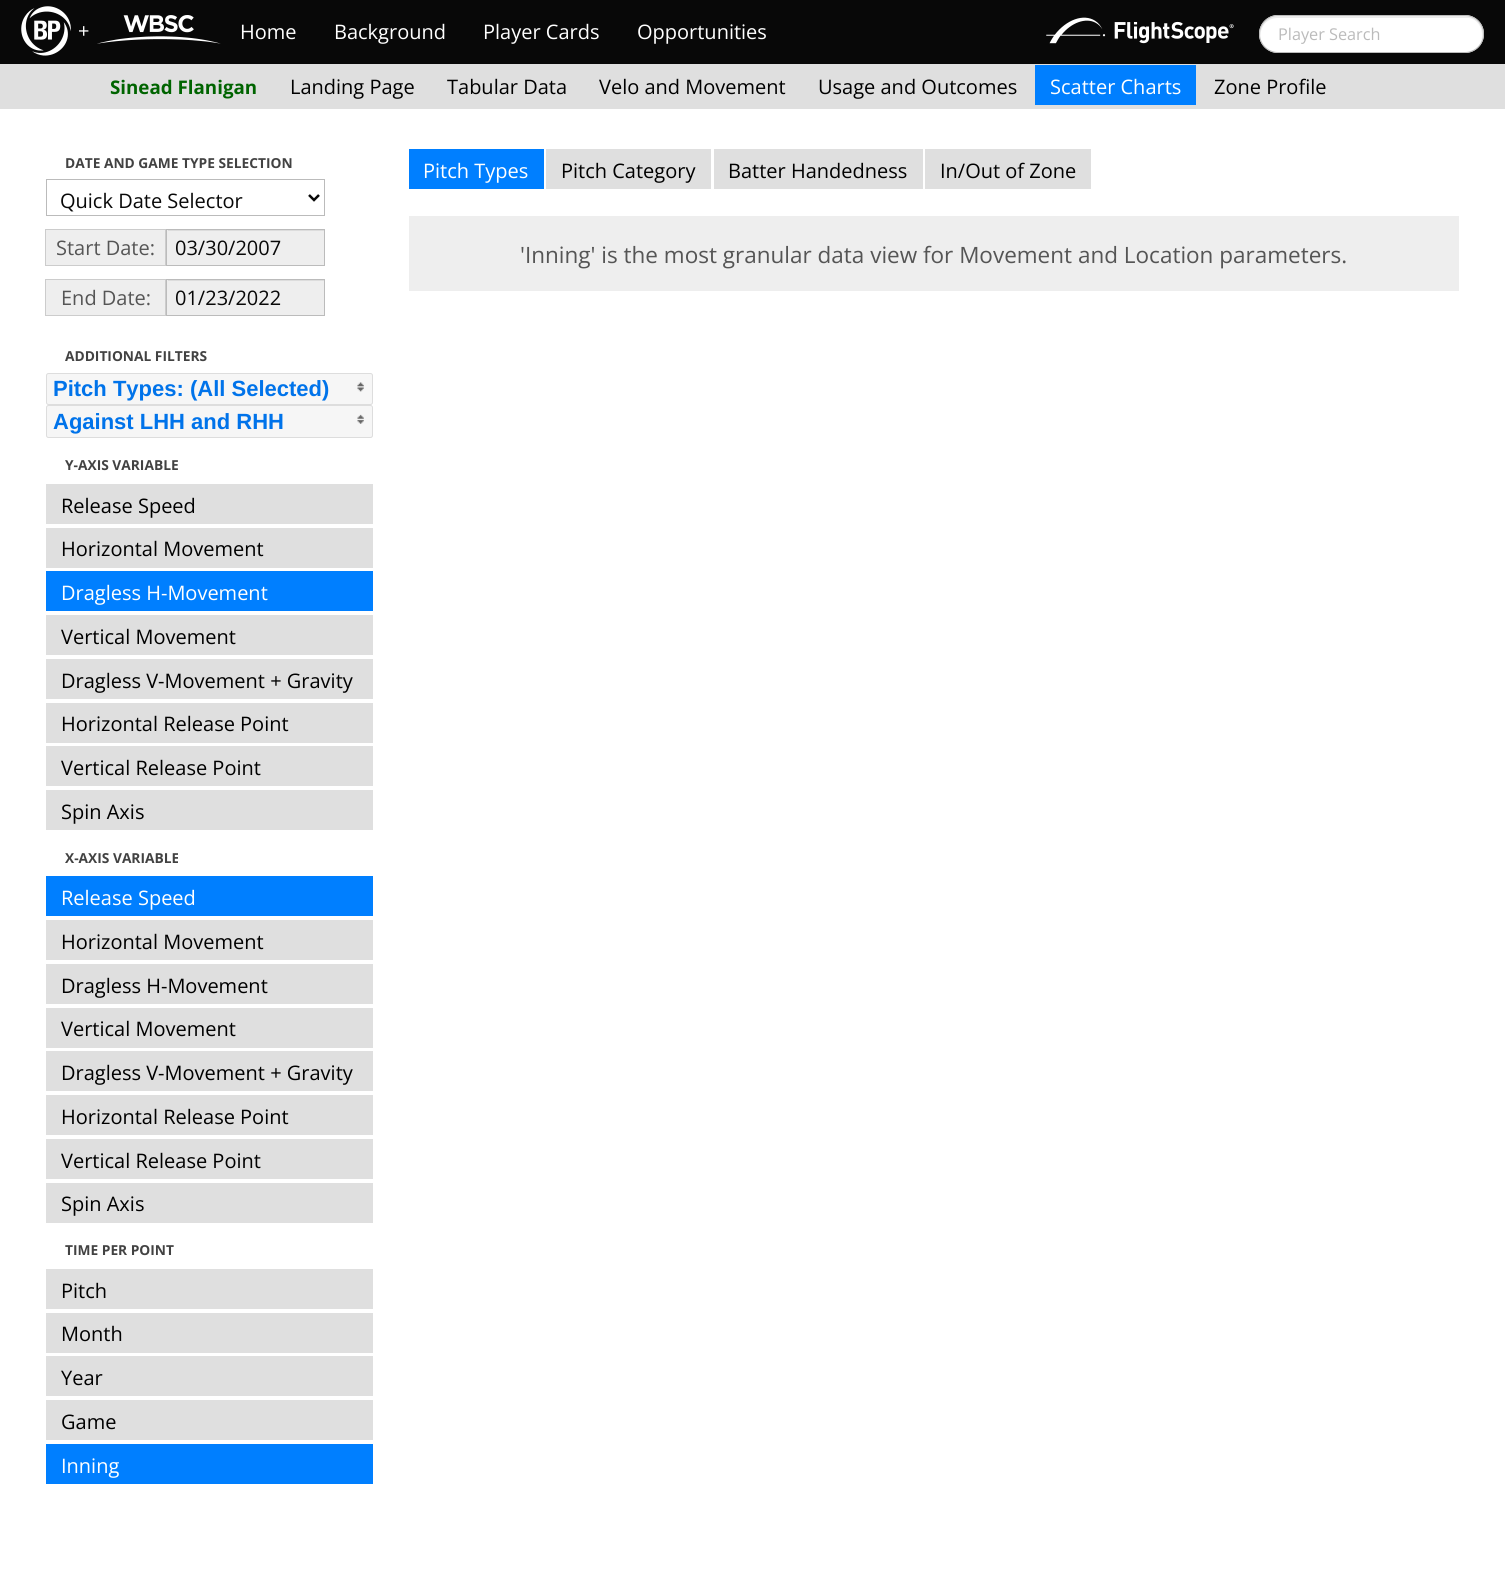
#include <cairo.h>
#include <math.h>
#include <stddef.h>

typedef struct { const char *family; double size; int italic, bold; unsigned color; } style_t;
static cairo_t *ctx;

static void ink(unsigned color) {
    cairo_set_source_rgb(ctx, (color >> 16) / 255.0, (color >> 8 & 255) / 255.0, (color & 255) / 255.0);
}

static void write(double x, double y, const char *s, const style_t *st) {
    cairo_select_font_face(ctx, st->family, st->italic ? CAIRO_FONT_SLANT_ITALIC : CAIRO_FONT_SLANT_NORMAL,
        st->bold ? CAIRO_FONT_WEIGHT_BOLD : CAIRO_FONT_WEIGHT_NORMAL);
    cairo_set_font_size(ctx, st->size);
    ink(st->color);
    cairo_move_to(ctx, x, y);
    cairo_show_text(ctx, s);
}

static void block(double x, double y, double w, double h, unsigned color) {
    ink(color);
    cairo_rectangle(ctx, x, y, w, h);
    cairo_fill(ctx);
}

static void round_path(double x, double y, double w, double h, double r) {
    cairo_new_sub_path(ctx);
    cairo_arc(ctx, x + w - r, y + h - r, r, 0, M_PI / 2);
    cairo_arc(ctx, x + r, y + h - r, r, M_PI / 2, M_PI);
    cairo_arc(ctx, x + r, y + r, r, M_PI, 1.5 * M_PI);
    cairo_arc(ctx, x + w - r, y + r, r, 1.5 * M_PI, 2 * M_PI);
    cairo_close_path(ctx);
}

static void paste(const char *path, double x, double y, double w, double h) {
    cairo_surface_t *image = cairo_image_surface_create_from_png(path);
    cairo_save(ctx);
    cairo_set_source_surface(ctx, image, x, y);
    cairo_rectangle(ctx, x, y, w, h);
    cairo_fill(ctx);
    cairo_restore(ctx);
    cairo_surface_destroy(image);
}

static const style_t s1 = {"Open Sans", 20, 0, 0, 0xffffff};
static const style_t s2 = {"Open Sans", 16.25, 0, 0, 0xbbbbbb};
static const style_t s3 = {"Open Sans", 18.75, 0, 1, 0x006400};
static const style_t s4 = {"Open Sans", 20, 0, 0, 0x000000};
static const style_t s5 = {"Open Sans", 13.75, 0, 1, 0x424242};
static const style_t s6 = {"Open Sans", 20, 0, 0, 0x080808};
static const style_t s7 = {"Open Sans", 20, 0, 0, 0x555555};
static const style_t s8 = {"Liberation Sans", 22, 0, 1, 0x0073ea};
static const style_t s9 = {"Open Sans", 22.5, 0, 0, 0x555555};

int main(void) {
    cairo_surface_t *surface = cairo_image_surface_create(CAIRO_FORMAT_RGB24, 1505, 1576);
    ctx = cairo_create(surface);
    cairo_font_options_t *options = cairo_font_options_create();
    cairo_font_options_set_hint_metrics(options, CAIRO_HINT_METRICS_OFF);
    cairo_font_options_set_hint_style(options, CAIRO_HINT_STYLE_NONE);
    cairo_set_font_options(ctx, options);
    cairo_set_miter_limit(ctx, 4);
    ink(0xffffff);
    cairo_paint(ctx);
    block(0, 0, 1505, 64, 0x080808);
    paste("pic1.png", 21, 6, 50, 50);
    write(78, 38, "+", &s1);
    paste("pic2.png", 97, 15, 124, 29);
    write(240, 39, "Home", &s1);
    write(334, 39, "Background", &s1);
    write(483, 39, "Player Cards", &s1);
    write(637, 39, "Opportunities", &s1);
    paste("pic3.png", 1046, 17, 188, 27);
    round_path(1259, 15, 225, 38, 19);
    cairo_fill(ctx);
    ink(0xececec);
    cairo_new_path(ctx);
    cairo_move_to(ctx, 1278, 18);
    cairo_line_to(ctx, 1469, 18);
    cairo_curve_to(ctx, 1480, 20, 1484, 32, 1481, 41);
    cairo_curve_to(ctx, 1482, 39, 1483, 36, 1483, 34);
    cairo_curve_to(ctx, 1483, 24, 1475, 16, 1466, 16);
    cairo_line_to(ctx, 1278, 16);
    cairo_curve_to(ctx, 1268, 16, 1260, 24, 1260, 34);
    cairo_line_to(ctx, 1261, 39);
    cairo_curve_to(ctx, 1259, 29, 1265, 18, 1278, 18);
    cairo_close_path(ctx);
    cairo_fill(ctx);
    round_path(1259.5, 15.5, 224, 37, 18.5);
    ink(0xbbbbbb);
    cairo_set_line_width(ctx, 1);
    cairo_stroke(ctx);
    write(1278, 40, "Player Search", &s2);
    block(0, 64, 1505, 45, 0xdfdfdf);
    write(110, 94, "Sinead Flanigan", &s3);
    write(290, 94, "Landing Page", &s4);
    write(447, 94, "Tabular Data", &s4);
    write(599, 94, "Velo and Movement", &s4);
    write(818, 94, "Usage and Outcomes", &s4);
    block(1035, 65, 161, 40, 0x007fff);
    write(1050, 94, "Scatter Charts", &s1);
    write(1214, 94, "Zone Profile", &s4);
    write(65, 168, "DATE AND GAME TYPE SELECTION", &s5);
    cairo_rectangle(ctx, 46.5, 179.5, 278, 36);
    ink(0xbbbbbb);
    cairo_stroke(ctx);
    cairo_new_path(ctx);
    cairo_move_to(ctx, 309, 195);
    cairo_line_to(ctx, 314, 200);
    cairo_line_to(ctx, 319, 195);
    ink(0x080808);
    cairo_set_line_width(ctx, 2.5);
    cairo_stroke(ctx);
    write(60, 208, "Quick Date Selector", &s6);
    ink(0xeeeeee);
    cairo_rectangle(ctx, 45.5, 229.5, 120, 36);
    cairo_fill_preserve(ctx);
    ink(0xcccccc);
    cairo_set_line_width(ctx, 1);
    cairo_stroke(ctx);
    write(56, 255, "Start Date:", &s7);
    block(167, 230, 157, 35, 0xeeeeee);
    block(168, 230, 156, 1, 0xdcdcdc);
    cairo_rectangle(ctx, 166.5, 229.5, 158, 36);
    ink(0xbbbbbb);
    cairo_stroke(ctx);
    write(175, 255, "03/30/2007", &s6);
    ink(0xeeeeee);
    cairo_rectangle(ctx, 45.5, 279.5, 120, 36);
    cairo_fill_preserve(ctx);
    ink(0xcccccc);
    cairo_stroke(ctx);
    write(61, 305, "End Date:", &s7);
    block(167, 280, 157, 35, 0xeeeeee);
    block(168, 280, 156, 1, 0xdcdcdc);
    cairo_rectangle(ctx, 166.5, 279.5, 158, 36);
    ink(0xbbbbbb);
    cairo_stroke(ctx);
    write(175, 305, "01/23/2022", &s6);
    write(65, 361, "ADDITIONAL FILTERS", &s5);
    ink(0xf6f6f6);
    round_path(46.5, 373.5, 326, 31, 2);
    cairo_fill_preserve(ctx);
    ink(0xdddddd);
    cairo_stroke(ctx);
    write(53, 396, "Pitch Types: (All Selected)", &s8);
    paste("pic4.png", 357, 382, 7, 10);
    ink(0xf6f6f6);
    round_path(46.5, 405.5, 326, 32, 2);
    cairo_fill_preserve(ctx);
    ink(0xdddddd);
    cairo_stroke(ctx);
    write(53, 429, "Against LHH and RHH", &s8);
    paste("pic5.png", 357, 414, 7, 10);
    write(65, 470, "Y-AXIS VARIABLE", &s5);
    block(46, 484, 327, 40, 0xdfdfdf);
    write(61, 513, "Release Speed", &s4);
    block(46, 528, 327, 40, 0xdfdfdf);
    write(61, 556, "Horizontal Movement", &s4);
    block(46, 571, 327, 40, 0x007fff);
    write(61, 600, "Dragless H-Movement", &s1);
    block(46, 615, 327, 40, 0xdfdfdf);
    write(61, 644, "Vertical Movement", &s4);
    block(46, 659, 327, 40, 0xdfdfdf);
    write(61, 688, "Dragless V-Movement + Gravity", &s4);
    block(46, 703, 327, 40, 0xdfdfdf);
    write(61, 731, "Horizontal Release Point", &s4);
    block(46, 746, 327, 40, 0xdfdfdf);
    write(61, 775, "Vertical Release Point", &s4);
    block(46, 790, 327, 40, 0xdfdfdf);
    write(61, 819, "Spin Axis", &s4);
    write(65, 863, "X-AXIS VARIABLE", &s5);
    block(46, 876, 327, 40, 0x007fff);
    write(61, 905, "Release Speed", &s1);
    block(46, 920, 327, 40, 0xdfdfdf);
    write(61, 949, "Horizontal Movement", &s4);
    block(46, 964, 327, 40, 0xdfdfdf);
    write(61, 993, "Dragless H-Movement", &s4);
    block(46, 1008, 327, 40, 0xdfdfdf);
    write(61, 1036, "Vertical Movement", &s4);
    block(46, 1051, 327, 40, 0xdfdfdf);
    write(61, 1080, "Dragless V-Movement + Gravity", &s4);
    block(46, 1095, 327, 40, 0xdfdfdf);
    write(61, 1124, "Horizontal Release Point", &s4);
    block(46, 1139, 327, 40, 0xdfdfdf);
    write(61, 1168, "Vertical Release Point", &s4);
    block(46, 1183, 327, 40, 0xdfdfdf);
    write(61, 1211, "Spin Axis", &s4);
    write(65, 1255, "TIME PER POINT", &s5);
    block(46, 1269, 327, 40, 0xdfdfdf);
    write(61, 1298, "Pitch", &s4);
    block(46, 1313, 327, 40, 0xdfdfdf);
    write(61, 1341, "Month", &s4);
    block(46, 1356, 327, 40, 0xdfdfdf);
    write(61, 1385, "Year", &s4);
    block(46, 1400, 327, 40, 0xdfdfdf);
    write(61, 1429, "Game", &s4);
    block(46, 1444, 327, 40, 0x007fff);
    write(61, 1473, "Inning", &s1);
    block(409, 149, 135, 40, 0x007fff);
    write(423, 178, "Pitch Types", &s1);
    block(546, 149, 165, 40, 0xdfdfdf);
    write(561, 178, "Pitch Category", &s4);
    block(714, 149, 209, 40, 0xdfdfdf);
    write(728, 178, "Batter Handedness", &s4);
    block(925, 149, 166, 40, 0xdfdfdf);
    write(940, 178, "In/Out of Zone", &s4);
    block(409, 216, 1050, 75, 0xeeeeee);
    write(520, 263, "'Inning' is the most granular data view for Movement and Location parameters.", &s9);
    cairo_surface_write_to_png(surface, "screenshot.png");
    cairo_font_options_destroy(options);
    cairo_destroy(ctx);
    cairo_surface_destroy(surface);
    return 0;
}
